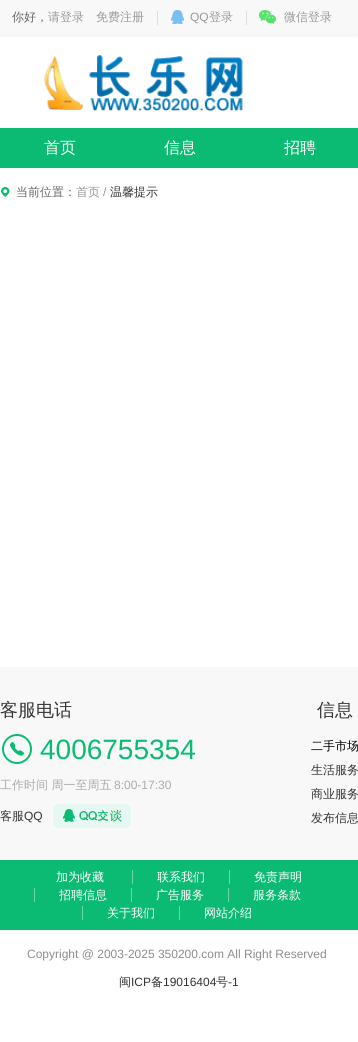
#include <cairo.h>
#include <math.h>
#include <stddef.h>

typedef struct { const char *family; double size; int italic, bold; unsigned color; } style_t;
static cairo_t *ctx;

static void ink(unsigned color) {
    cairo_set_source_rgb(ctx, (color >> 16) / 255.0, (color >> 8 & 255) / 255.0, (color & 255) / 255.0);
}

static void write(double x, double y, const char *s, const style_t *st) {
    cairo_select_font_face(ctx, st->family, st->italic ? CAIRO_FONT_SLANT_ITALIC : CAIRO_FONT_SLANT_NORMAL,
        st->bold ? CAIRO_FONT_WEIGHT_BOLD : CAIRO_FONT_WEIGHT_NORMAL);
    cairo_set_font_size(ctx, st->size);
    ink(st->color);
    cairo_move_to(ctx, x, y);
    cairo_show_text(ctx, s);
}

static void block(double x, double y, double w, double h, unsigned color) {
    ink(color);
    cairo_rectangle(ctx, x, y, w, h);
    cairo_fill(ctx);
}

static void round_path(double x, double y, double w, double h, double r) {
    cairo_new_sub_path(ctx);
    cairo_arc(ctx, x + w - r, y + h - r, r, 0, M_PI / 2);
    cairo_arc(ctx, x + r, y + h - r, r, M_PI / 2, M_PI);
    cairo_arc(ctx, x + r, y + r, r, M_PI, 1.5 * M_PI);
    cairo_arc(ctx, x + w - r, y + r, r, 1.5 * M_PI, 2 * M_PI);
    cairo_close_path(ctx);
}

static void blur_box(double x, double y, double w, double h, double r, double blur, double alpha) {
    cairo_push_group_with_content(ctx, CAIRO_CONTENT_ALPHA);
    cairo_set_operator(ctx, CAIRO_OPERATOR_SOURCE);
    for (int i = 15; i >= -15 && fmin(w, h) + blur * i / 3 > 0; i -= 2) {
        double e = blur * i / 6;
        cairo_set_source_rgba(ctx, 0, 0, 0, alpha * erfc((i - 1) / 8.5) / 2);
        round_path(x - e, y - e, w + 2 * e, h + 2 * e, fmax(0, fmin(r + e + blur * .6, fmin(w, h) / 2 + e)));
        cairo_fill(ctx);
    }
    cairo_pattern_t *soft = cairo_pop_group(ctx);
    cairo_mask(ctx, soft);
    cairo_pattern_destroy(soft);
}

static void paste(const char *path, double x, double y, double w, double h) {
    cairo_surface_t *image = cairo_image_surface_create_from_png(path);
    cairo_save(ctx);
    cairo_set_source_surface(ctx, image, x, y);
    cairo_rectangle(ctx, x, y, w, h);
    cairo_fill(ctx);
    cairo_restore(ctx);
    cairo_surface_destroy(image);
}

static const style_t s1 = {"WenQuanYi Zen Hei Medium", 12, 0, 0, 0x666666};
static const style_t s2 = {"WenQuanYi Zen Hei Medium", 12, 0, 0, 0x999999};
static const style_t s3 = {"Liberation Sans", 12, 0, 0, 0x999999};
static const style_t s4 = {"WenQuanYi Zen Hei Medium", 16, 0, 0, 0xffffff};
static const style_t s5 = {"WenQuanYi Zen Hei Medium", 12, 0, 0, 0x333333};
static const style_t s6 = {"WenQuanYi Zen Hei Medium", 18, 0, 0, 0x333333};
static const style_t s7 = {"Liberation Sans", 28, 0, 0, 0x0bbb73};
static const style_t s8 = {"WenQuanYi Zen Hei Medium", 12, 0, 0, 0xaaaaaa};
static const style_t s9 = {"Liberation Sans", 12, 0, 0, 0xaaaaaa};
static const style_t s10 = {"Liberation Sans", 12, 0, 0, 0x333333};
static const style_t s11 = {"WenQuanYi Zen Hei Medium", 12, 0, 0, 0x000000};
static const style_t s12 = {"WenQuanYi Zen Hei Medium", 12, 0, 0, 0xffffff};
static const style_t s13 = {"Liberation Sans", 12, 0, 0, 0x8c8c8c};

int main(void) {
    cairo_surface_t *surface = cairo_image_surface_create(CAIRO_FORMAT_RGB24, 358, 1042);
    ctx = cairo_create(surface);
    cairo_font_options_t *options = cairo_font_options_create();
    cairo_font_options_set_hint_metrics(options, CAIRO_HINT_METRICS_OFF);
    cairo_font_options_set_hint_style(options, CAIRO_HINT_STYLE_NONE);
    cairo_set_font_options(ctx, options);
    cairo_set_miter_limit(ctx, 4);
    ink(0xffffff);
    cairo_paint(ctx);
    ink(0x000000);
    blur_box(0, 0, 358, 35, 0, 2, 0.1);
    block(0, 0, 358, 35, 0xf8f8f8);
    write(12, 21, "你好，", &s1);
    write(48, 21, "请登录", &s2);
    write(96, 21, "免费注册", &s2);
    block(157, 11, 1, 14, 0xdddddd);
    paste("pic1.png", 171, 10, 13, 14);
    write(190, 21, "QQ", &s3);
    write(209, 21, "登录", &s2);
    block(246, 11, 1, 14, 0xdddddd);
    paste("pic2.png", 259, 10, 17, 14);
    write(284, 21, "微信登录", &s2);
    paste("pic3.png", 44, 55, 199, 56);
    block(0, 128, 358, 40, 0x0bbb73);
    write(44, 153, "首页", &s4);
    write(164, 153, "信息", &s4);
    write(284, 153, "招聘", &s4);
    paste("pic4.png", 1, 187, 9, 10);
    write(16, 196, "当前位置：", &s1);
    write(76, 196, "首页", &s2);
    write(103, 196, "/", &s3);
    write(110, 196, "温馨提示", &s5);
    block(0, 667, 358, 193, 0xf8f8f8);
    write(0, 716, "客服电话", &s6);
    paste("pic5.png", 2, 734, 30, 30);
    write(40, 759, "4006755354", &s7);
    write(0, 789, "工作时间 周一至周五", &s8);
    write(114, 789, "8:00-17:30", &s9);
    write(0, 820, "客服", &s5);
    write(24, 820, "QQ", &s10);
    paste("pic6.png", 53, 804, 78, 24);
    write(317, 716, "信息", &s6);
    write(311, 750, "二手市场", &s11);
    write(311, 774, "生活服务", &s5);
    write(311, 798, "商业服务", &s5);
    write(311, 822, "发布信息", &s5);
    block(0, 860, 358, 70, 0x0bbb73);
    write(56, 881, "加为收藏", &s12);
    block(132, 870, 1, 14, 0x6dd6ab);
    write(157, 881, "联系我们", &s12);
    block(229, 870, 1, 14, 0x6dd6ab);
    write(254, 881, "免责声明", &s12);
    block(34, 888, 1, 14, 0x6dd6ab);
    write(59, 899, "招聘信息", &s12);
    block(131, 888, 1, 14, 0x6dd6ab);
    write(156, 899, "广告服务", &s12);
    block(228, 888, 1, 14, 0x6dd6ab);
    write(253, 899, "服务条款", &s12);
    block(82, 906, 1, 14, 0x6dd6ab);
    write(107, 917, "关于我们", &s12);
    block(179, 906, 1, 14, 0x6dd6ab);
    write(204, 917, "网站介绍", &s12);
    write(27, 958, "Copyright @ 2003-2025 350200.com All Right Reserved", &s13);
    write(119, 986, "闽", &s5);
    write(131, 986, "ICP", &s10);
    write(151, 986, "备", &s5);
    write(163, 986, "19016404", &s10);
    write(216, 986, "号", &s5);
    write(228, 986, "-1", &s10);
    cairo_surface_write_to_png(surface, "screenshot.png");
    cairo_font_options_destroy(options);
    cairo_destroy(ctx);
    cairo_surface_destroy(surface);
    return 0;
}
